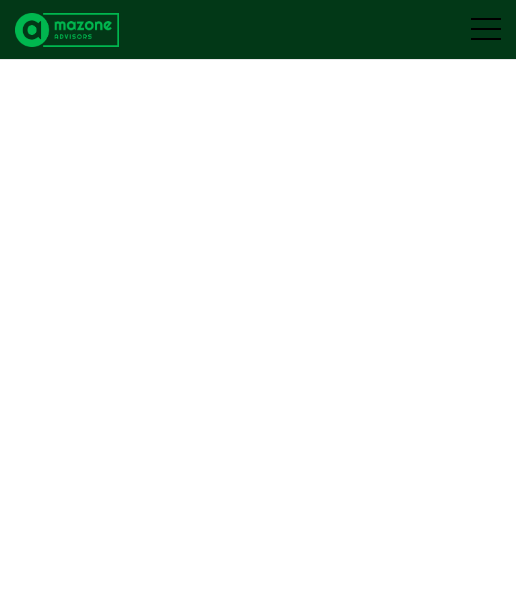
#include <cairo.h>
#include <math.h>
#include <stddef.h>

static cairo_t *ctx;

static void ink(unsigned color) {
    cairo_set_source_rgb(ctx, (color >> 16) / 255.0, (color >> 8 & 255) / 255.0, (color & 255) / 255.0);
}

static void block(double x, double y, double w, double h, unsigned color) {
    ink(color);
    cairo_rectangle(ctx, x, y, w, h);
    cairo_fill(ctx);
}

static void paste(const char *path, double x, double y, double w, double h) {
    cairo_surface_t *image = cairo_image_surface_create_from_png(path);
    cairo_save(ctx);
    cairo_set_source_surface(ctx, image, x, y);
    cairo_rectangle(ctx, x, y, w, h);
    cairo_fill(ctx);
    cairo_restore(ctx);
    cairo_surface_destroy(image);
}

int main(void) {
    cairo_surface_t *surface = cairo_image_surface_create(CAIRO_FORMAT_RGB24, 516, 613);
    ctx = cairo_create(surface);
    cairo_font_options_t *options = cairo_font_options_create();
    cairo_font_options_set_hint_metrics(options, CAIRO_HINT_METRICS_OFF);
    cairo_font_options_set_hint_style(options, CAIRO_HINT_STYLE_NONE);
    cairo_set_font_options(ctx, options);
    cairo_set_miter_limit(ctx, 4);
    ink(0x023817);
    cairo_paint(ctx);
    block(0, 59, 516, 1, 0xe8e8e9);
    paste("pic1.png", 15, 13, 104, 34);
    block(471, 18, 30, 2, 0x000000);
    block(471, 28, 30, 2, 0x000000);
    block(471, 38, 30, 2, 0x000000);
    block(0, 60, 516, 553, 0xffffff);
    cairo_surface_write_to_png(surface, "screenshot.png");
    cairo_font_options_destroy(options);
    cairo_destroy(ctx);
    cairo_surface_destroy(surface);
    return 0;
}
